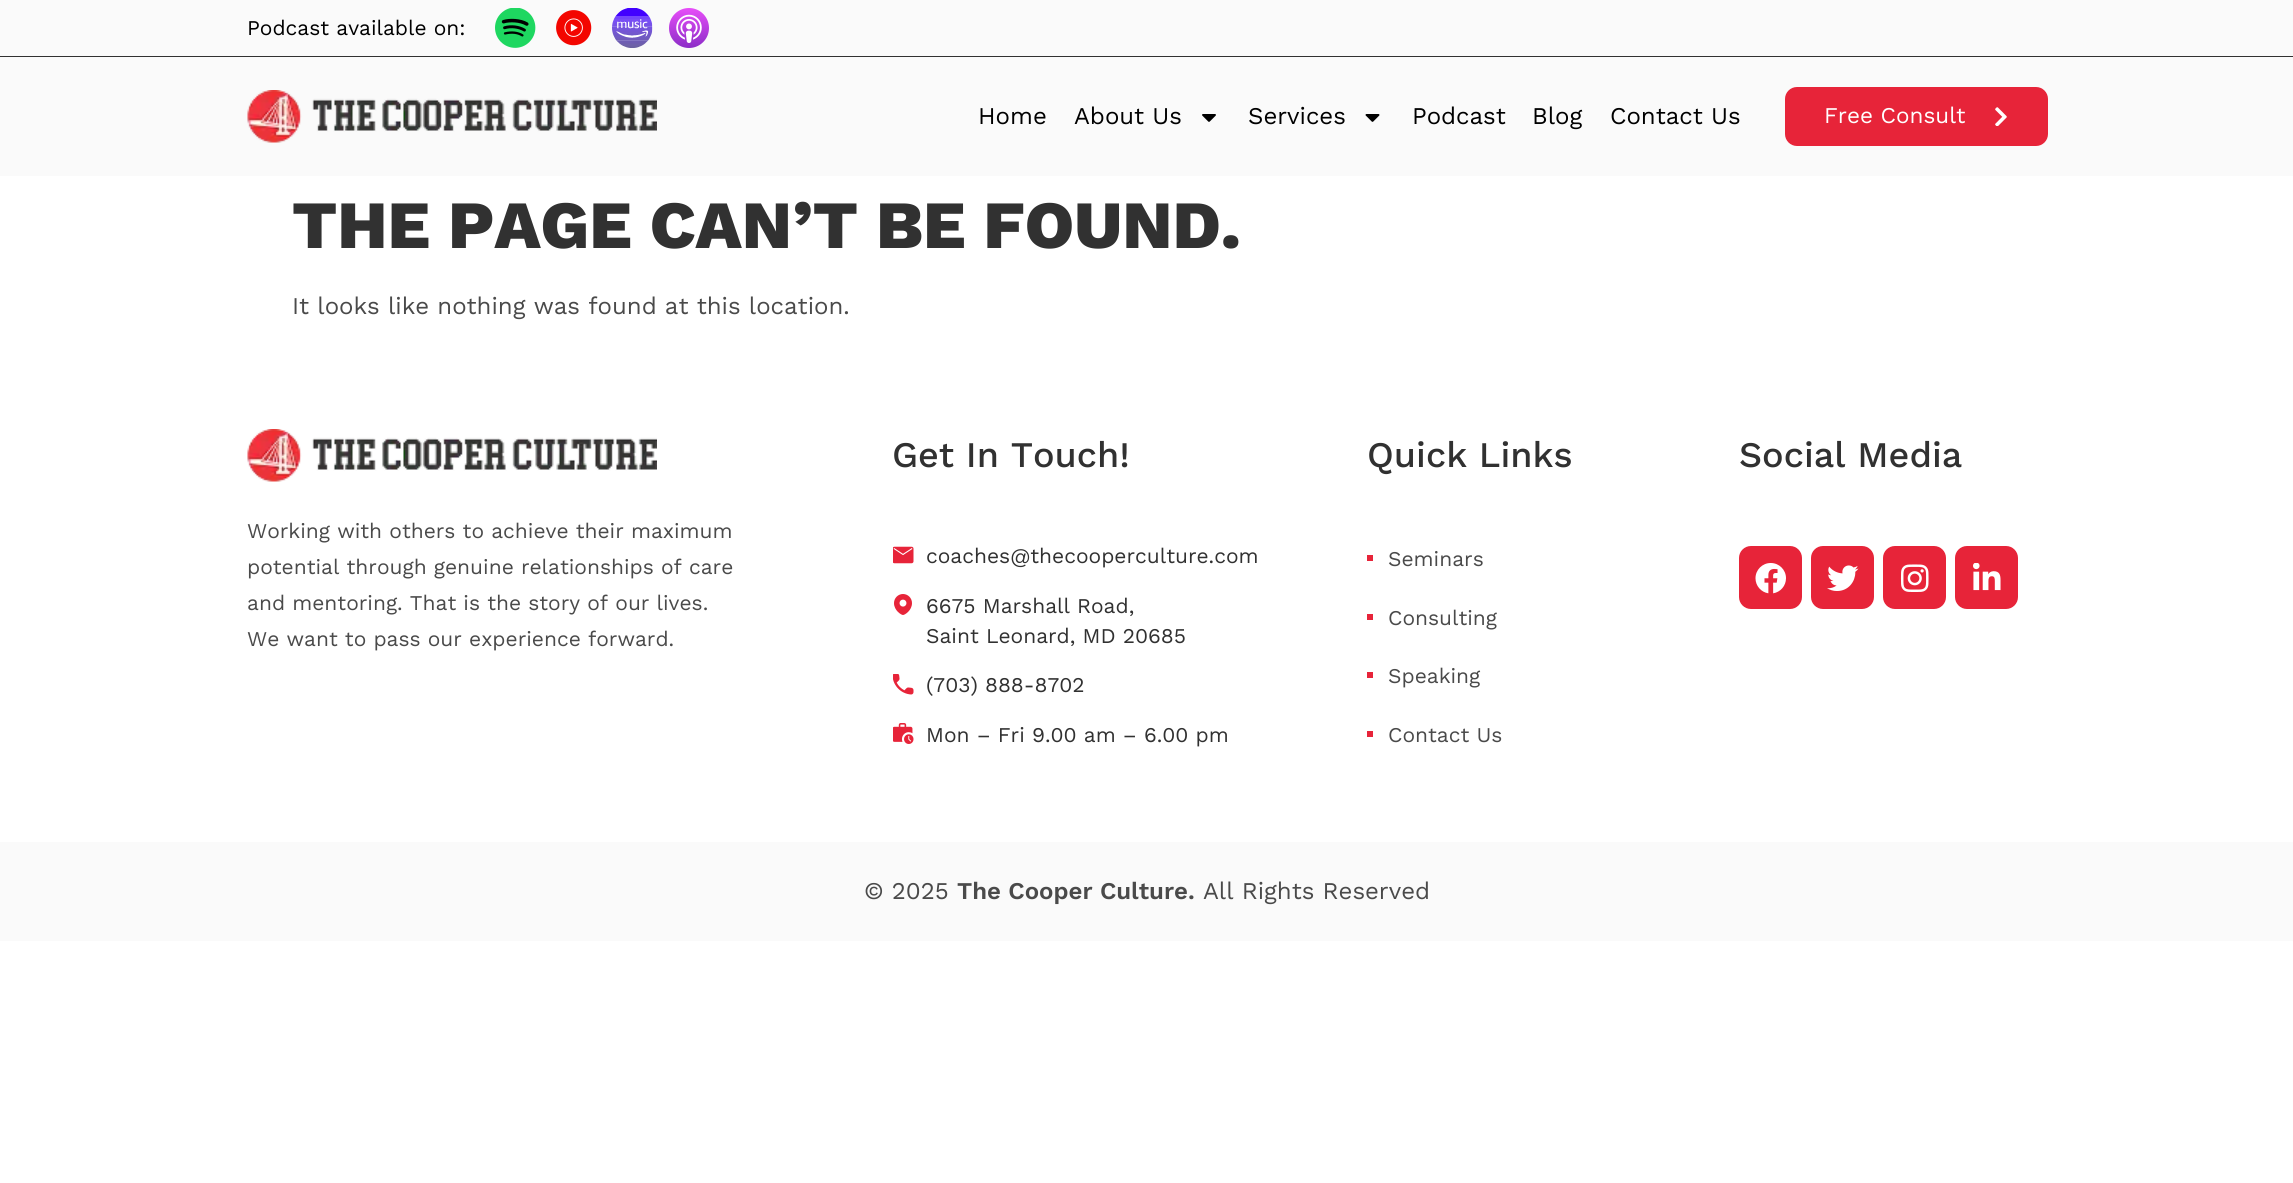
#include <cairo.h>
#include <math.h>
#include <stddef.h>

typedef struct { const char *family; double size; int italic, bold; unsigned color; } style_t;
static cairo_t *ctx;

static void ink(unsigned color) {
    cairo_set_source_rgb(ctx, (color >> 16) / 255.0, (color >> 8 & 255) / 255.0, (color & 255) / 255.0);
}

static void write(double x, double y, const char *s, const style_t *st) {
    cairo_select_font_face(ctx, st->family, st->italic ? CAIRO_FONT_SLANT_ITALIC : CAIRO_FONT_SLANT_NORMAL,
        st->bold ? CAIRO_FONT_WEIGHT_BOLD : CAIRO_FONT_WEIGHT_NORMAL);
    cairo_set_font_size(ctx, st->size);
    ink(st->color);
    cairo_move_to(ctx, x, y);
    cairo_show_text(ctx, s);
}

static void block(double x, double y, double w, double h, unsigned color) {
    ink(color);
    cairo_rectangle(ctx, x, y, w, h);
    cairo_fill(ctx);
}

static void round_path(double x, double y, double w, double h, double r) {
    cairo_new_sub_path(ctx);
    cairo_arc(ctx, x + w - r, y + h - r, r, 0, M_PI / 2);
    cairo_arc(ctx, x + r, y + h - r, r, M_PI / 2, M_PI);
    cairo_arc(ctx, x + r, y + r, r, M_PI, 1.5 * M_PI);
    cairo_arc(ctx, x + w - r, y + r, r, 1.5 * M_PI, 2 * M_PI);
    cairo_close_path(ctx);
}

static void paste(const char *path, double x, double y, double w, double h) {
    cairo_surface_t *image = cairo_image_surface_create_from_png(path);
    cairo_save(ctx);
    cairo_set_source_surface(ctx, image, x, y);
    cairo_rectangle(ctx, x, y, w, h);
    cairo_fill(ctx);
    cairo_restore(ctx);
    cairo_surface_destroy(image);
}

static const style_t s1 = {"Work Sans", 21, 0, 0, 0x000000};
static const style_t s2 = {"Work Sans", 24, 0, 0, 0x000000};
static const style_t s3 = {"Work Sans", 22.5, 0, 0, 0xffffff};
static const style_t s4 = {"Work Sans ExtraBold", 67.5, 0, 0, 0x313131};
static const style_t s5 = {"Work Sans", 24, 0, 0, 0x4a4a4a};
static const style_t s6 = {"Work Sans Medium", 36, 0, 0, 0x313131};
static const style_t s7 = {"Work Sans", 21, 0, 0, 0x313131};
static const style_t s8 = {"Work Sans", 21, 0, 0, 0x4a4a4a};
static const style_t s9 = {"Work Sans SemiBold", 24, 0, 0, 0x4a4a4a};

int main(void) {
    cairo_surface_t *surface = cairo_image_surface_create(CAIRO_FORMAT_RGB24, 2293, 1183);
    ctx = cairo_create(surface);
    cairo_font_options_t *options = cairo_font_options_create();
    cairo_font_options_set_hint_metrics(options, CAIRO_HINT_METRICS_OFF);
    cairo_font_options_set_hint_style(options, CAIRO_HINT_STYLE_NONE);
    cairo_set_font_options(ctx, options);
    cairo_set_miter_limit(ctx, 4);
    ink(0xffffff);
    cairo_paint(ctx);
    block(0, 0, 2293, 56, 0xfafafa);
    block(0, 56, 2293, 1, 0x313131);
    write(247, 35, "Podcast available on:", &s1);
    paste("pic1.png", 495, 8, 41, 40);
    paste("pic2.png", 556, 10, 36, 36);
    paste("pic3.png", 612, 8, 41, 40);
    paste("pic4.png", 669, 8, 40, 40);
    block(0, 57, 2293, 119, 0xfafafa);
    paste("pic5.png", 247, 90, 410, 53);
    write(978, 124, "Home", &s2);
    write(1074, 124, "About Us", &s2);
    paste("pic6.png", 1202, 114, 14, 8);
    write(1248, 124, "Services", &s2);
    paste("pic7.png", 1365, 114, 15, 8);
    write(1412, 124, "Podcast", &s2);
    write(1532, 124, "Blog", &s2);
    write(1610, 124, "Contact Us", &s2);
    ink(0xe72439);
    round_path(1785, 87, 263, 59, 12);
    cairo_fill(ctx);
    write(1824, 123, "Free Consult", &s3);
    paste("pic8.png", 1995, 107, 12, 19);
    write(292, 248, "THE PAGE CAN’T BE FOUND.", &s4);
    write(292, 314, "It looks like nothing was found at this location.", &s5);
    write(892, 467, "Get In Touch!", &s6);
    paste("pic9.png", 893, 546, 21, 18);
    write(926, 563, "coaches@thecooperculture.com", &s7);
    paste("pic10.png", 894, 594, 18, 21);
    write(926, 613, "6675 Marshall Road,", &s7);
    write(926, 643, "Saint Leonard, MD 20685", &s7);
    paste("pic11.png", 893, 674, 21, 21);
    write(926, 692, "(703) 888-8702", &s7);
    paste("pic12.png", 893, 723, 21, 21);
    write(926, 742, "Mon – Fri 9.00 am – 6.00 pm", &s7);
    write(1367, 467, "Quick Links", &s6);
    block(1367, 555, 6, 6, 0xe72439);
    write(1388, 566, "Seminars", &s8);
    block(1367, 614, 6, 6, 0xe72439);
    write(1388, 625, "Consulting", &s8);
    block(1367, 672, 6, 6, 0xe72439);
    write(1388, 683, "Speaking", &s8);
    block(1367, 731, 6, 6, 0xe72439);
    write(1388, 742, "Contact Us", &s8);
    write(1739, 467, "Social Media", &s6);
    ink(0xe72439);
    round_path(1739, 546, 63, 63, 12);
    cairo_fill(ctx);
    paste("pic13.png", 1755, 563, 31, 31);
    round_path(1811, 546, 63, 63, 12);
    cairo_fill(ctx);
    paste("pic14.png", 1827, 565, 32, 26);
    round_path(1883, 546, 63, 63, 12);
    cairo_fill(ctx);
    paste("pic15.png", 1900, 564, 29, 28);
    round_path(1955, 546, 63, 63, 12);
    cairo_fill(ctx);
    paste("pic16.png", 1973, 563, 28, 28);
    paste("pic17.png", 247, 429, 410, 53);
    write(247, 538, "Working with others to achieve their maximum", &s8);
    write(247, 574, "potential through genuine relationships of care", &s8);
    write(247, 610, "and mentoring. That is the story of our lives.", &s8);
    write(247, 646, "We want to pass our experience forward.", &s8);
    block(0, 842, 2293, 99, 0xfafafa);
    write(864, 899, "© 2025", &s5);
    write(957, 899, "The Cooper Culture.", &s9);
    write(1203, 899, "All Rights Reserved", &s5);
    cairo_surface_write_to_png(surface, "screenshot.png");
    cairo_font_options_destroy(options);
    cairo_destroy(ctx);
    cairo_surface_destroy(surface);
    return 0;
}
